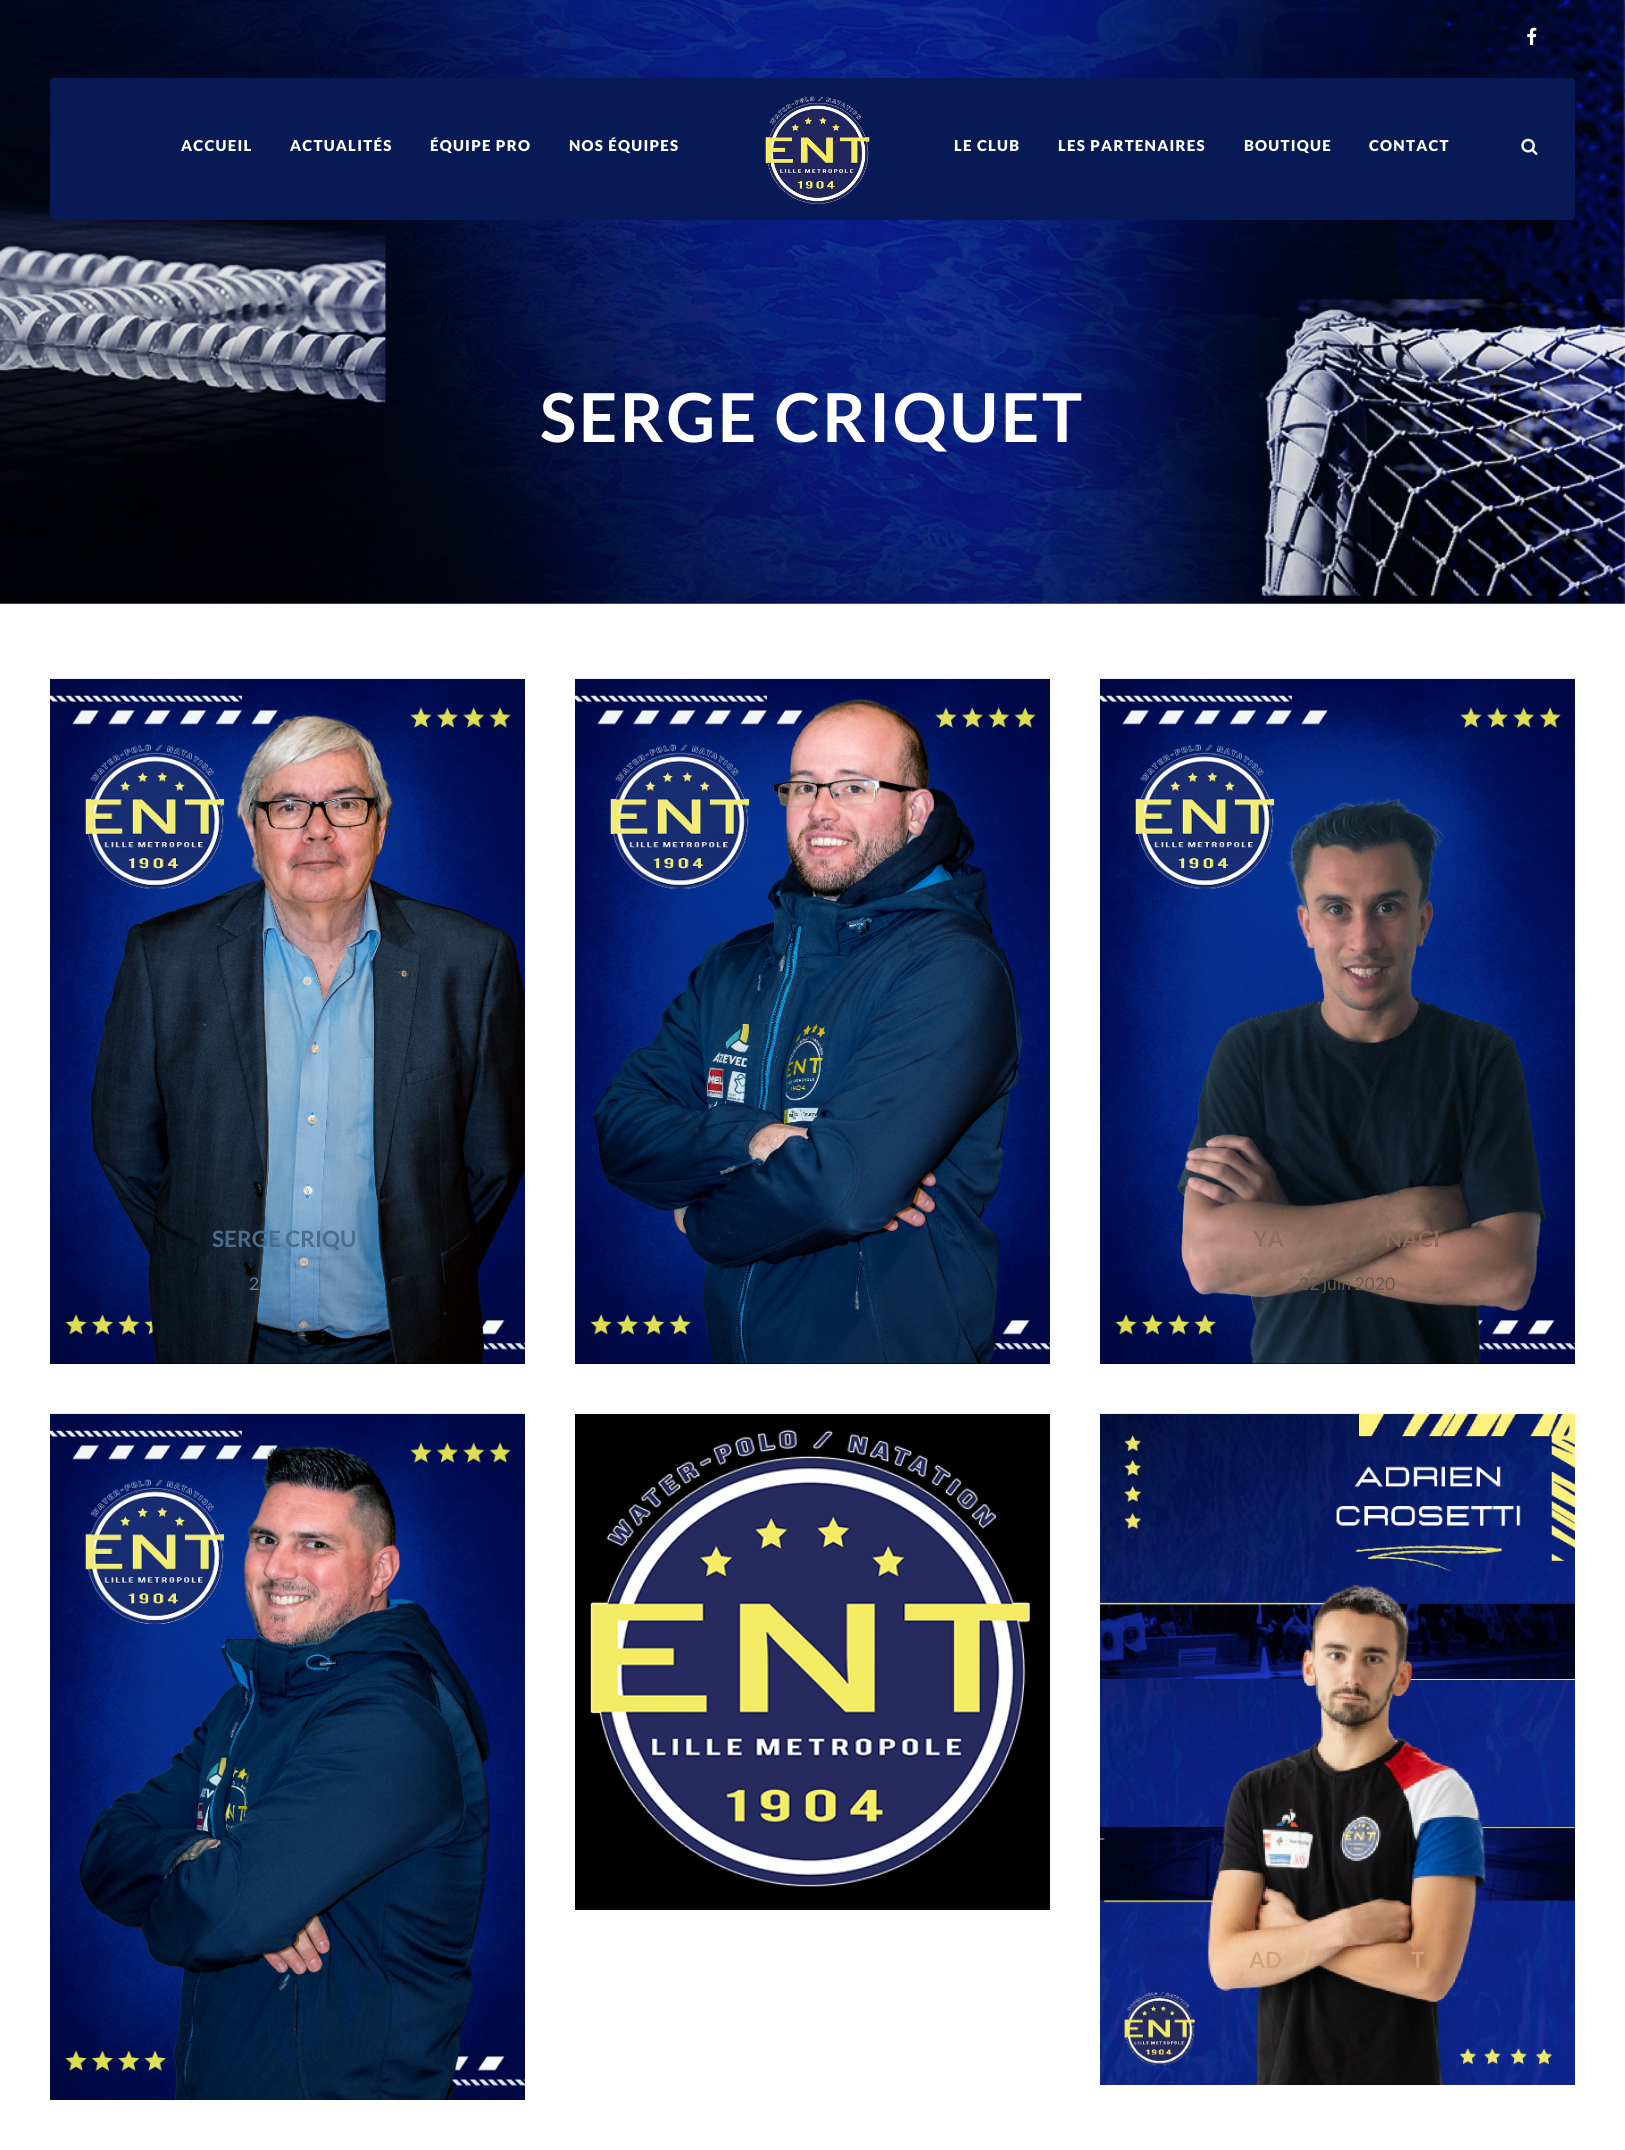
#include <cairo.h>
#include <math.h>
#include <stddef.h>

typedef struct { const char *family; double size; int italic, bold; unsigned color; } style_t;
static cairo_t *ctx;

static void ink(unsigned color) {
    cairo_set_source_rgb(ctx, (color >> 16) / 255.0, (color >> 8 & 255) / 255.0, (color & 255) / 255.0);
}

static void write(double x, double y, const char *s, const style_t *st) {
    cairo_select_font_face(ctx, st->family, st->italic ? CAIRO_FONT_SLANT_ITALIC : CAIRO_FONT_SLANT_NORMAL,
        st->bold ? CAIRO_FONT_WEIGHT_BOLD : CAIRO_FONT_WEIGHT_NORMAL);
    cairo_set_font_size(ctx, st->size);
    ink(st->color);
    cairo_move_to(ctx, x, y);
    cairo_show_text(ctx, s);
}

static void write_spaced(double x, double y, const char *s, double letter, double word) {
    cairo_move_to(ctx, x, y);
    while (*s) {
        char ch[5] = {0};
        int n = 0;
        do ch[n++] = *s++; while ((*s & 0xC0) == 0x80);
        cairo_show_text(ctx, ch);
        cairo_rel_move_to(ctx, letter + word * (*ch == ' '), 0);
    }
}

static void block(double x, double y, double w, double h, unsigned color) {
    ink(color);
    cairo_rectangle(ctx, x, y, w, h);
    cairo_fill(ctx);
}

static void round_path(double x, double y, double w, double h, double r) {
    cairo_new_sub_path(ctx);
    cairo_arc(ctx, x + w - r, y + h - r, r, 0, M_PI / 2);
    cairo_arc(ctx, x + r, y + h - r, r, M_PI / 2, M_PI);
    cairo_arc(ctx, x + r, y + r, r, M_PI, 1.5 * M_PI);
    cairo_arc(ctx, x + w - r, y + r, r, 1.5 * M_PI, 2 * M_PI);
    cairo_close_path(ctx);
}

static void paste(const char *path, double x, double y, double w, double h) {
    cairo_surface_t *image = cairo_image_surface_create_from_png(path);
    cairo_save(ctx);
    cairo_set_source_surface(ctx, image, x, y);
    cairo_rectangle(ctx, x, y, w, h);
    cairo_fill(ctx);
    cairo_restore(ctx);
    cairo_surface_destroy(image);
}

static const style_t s1 = {"Lato", 22.5, 0, 1, 0x4a6d8b};
static const style_t s2 = {"Lato", 17.5, 0, 0, 0x5b84a8};
static const style_t s3 = {"Lato", 22.5, 0, 1, 0x8b6b5d};
static const style_t s4 = {"Lato", 17.5, 0, 0, 0x695650};
static const style_t s5 = {"Lato", 22.5, 0, 1, 0xd3a27d};

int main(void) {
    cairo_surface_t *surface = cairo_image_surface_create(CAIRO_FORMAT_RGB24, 1625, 2150);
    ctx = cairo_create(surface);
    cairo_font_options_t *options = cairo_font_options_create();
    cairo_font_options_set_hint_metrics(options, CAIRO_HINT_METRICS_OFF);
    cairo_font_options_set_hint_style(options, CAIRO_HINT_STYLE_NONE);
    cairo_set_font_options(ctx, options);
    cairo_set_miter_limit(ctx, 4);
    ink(0xffffff);
    cairo_paint(ctx);
    paste("pic4.png", 0, 0, 1625, 604);
    paste("pic1.png", 1527, 27, 10, 19);
    ink(0x081a56);
    round_path(50, 78, 1525, 142, 4);
    cairo_fill(ctx);
    cairo_select_font_face(ctx, "Lato Black", CAIRO_FONT_SLANT_NORMAL, CAIRO_FONT_WEIGHT_NORMAL);
    cairo_set_font_size(ctx, 15);
    ink(0xffffff);
    write_spaced(181, 151, "ACCUEIL", 1.25, 0);
    write_spaced(290, 151, "ACTUALITÉS", 1.25, 0);
    write_spaced(430, 151, "ÉQUIPE PRO", 1.25, 0);
    write_spaced(569, 151, "NOS ÉQUIPES", 1.25, 0);
    paste("pic2.png", 765, 96, 105, 108);
    write_spaced(954, 151, "LE CLUB", 1.25, 0);
    write_spaced(1058, 151, "LES PARTENAIRES", 1.25, 0);
    write_spaced(1244, 151, "BOUTIQUE", 1.25, 0);
    write_spaced(1369, 151, "CONTACT", 1.25, 0);
    paste("pic3.png", 1521, 138, 17, 17);
    cairo_select_font_face(ctx, "Lato", CAIRO_FONT_SLANT_NORMAL, CAIRO_FONT_WEIGHT_BOLD);
    cairo_set_font_size(ctx, 67.5);
    write_spaced(540, 442, "SERGE CRIQUET", 2.5, 0);
    block(50, 1363, 475, 1, 0x000000);
    paste("pic5.png", 50, 678, 475, 686);
    write(212, 1247, "SERGE CRIQU", &s1);
    write(249, 1290, "2", &s2);
    block(575, 1363, 475, 1, 0x000000);
    paste("pic6.png", 575, 678, 475, 686);
    block(1100, 1363, 475, 1, 0x000000);
    paste("pic7.png", 1100, 678, 475, 686);
    write(1253, 1247, "YA", &s3);
    write(1385, 1247, "NACI", &s3);
    write(1299, 1290, "22 juin 2020", &s4);
    paste("pic8.png", 50, 1413, 475, 687);
    block(575, 1414, 475, 496, 0x000000);
    paste("pic9.png", 590, 1429, 440, 458);
    paste("pic10.png", 1100, 1413, 475, 672);
    write(1249, 1968, "AD", &s5);
    write(1411, 1968, "T", &s5);
    cairo_surface_write_to_png(surface, "screenshot.png");
    cairo_font_options_destroy(options);
    cairo_destroy(ctx);
    cairo_surface_destroy(surface);
    return 0;
}
